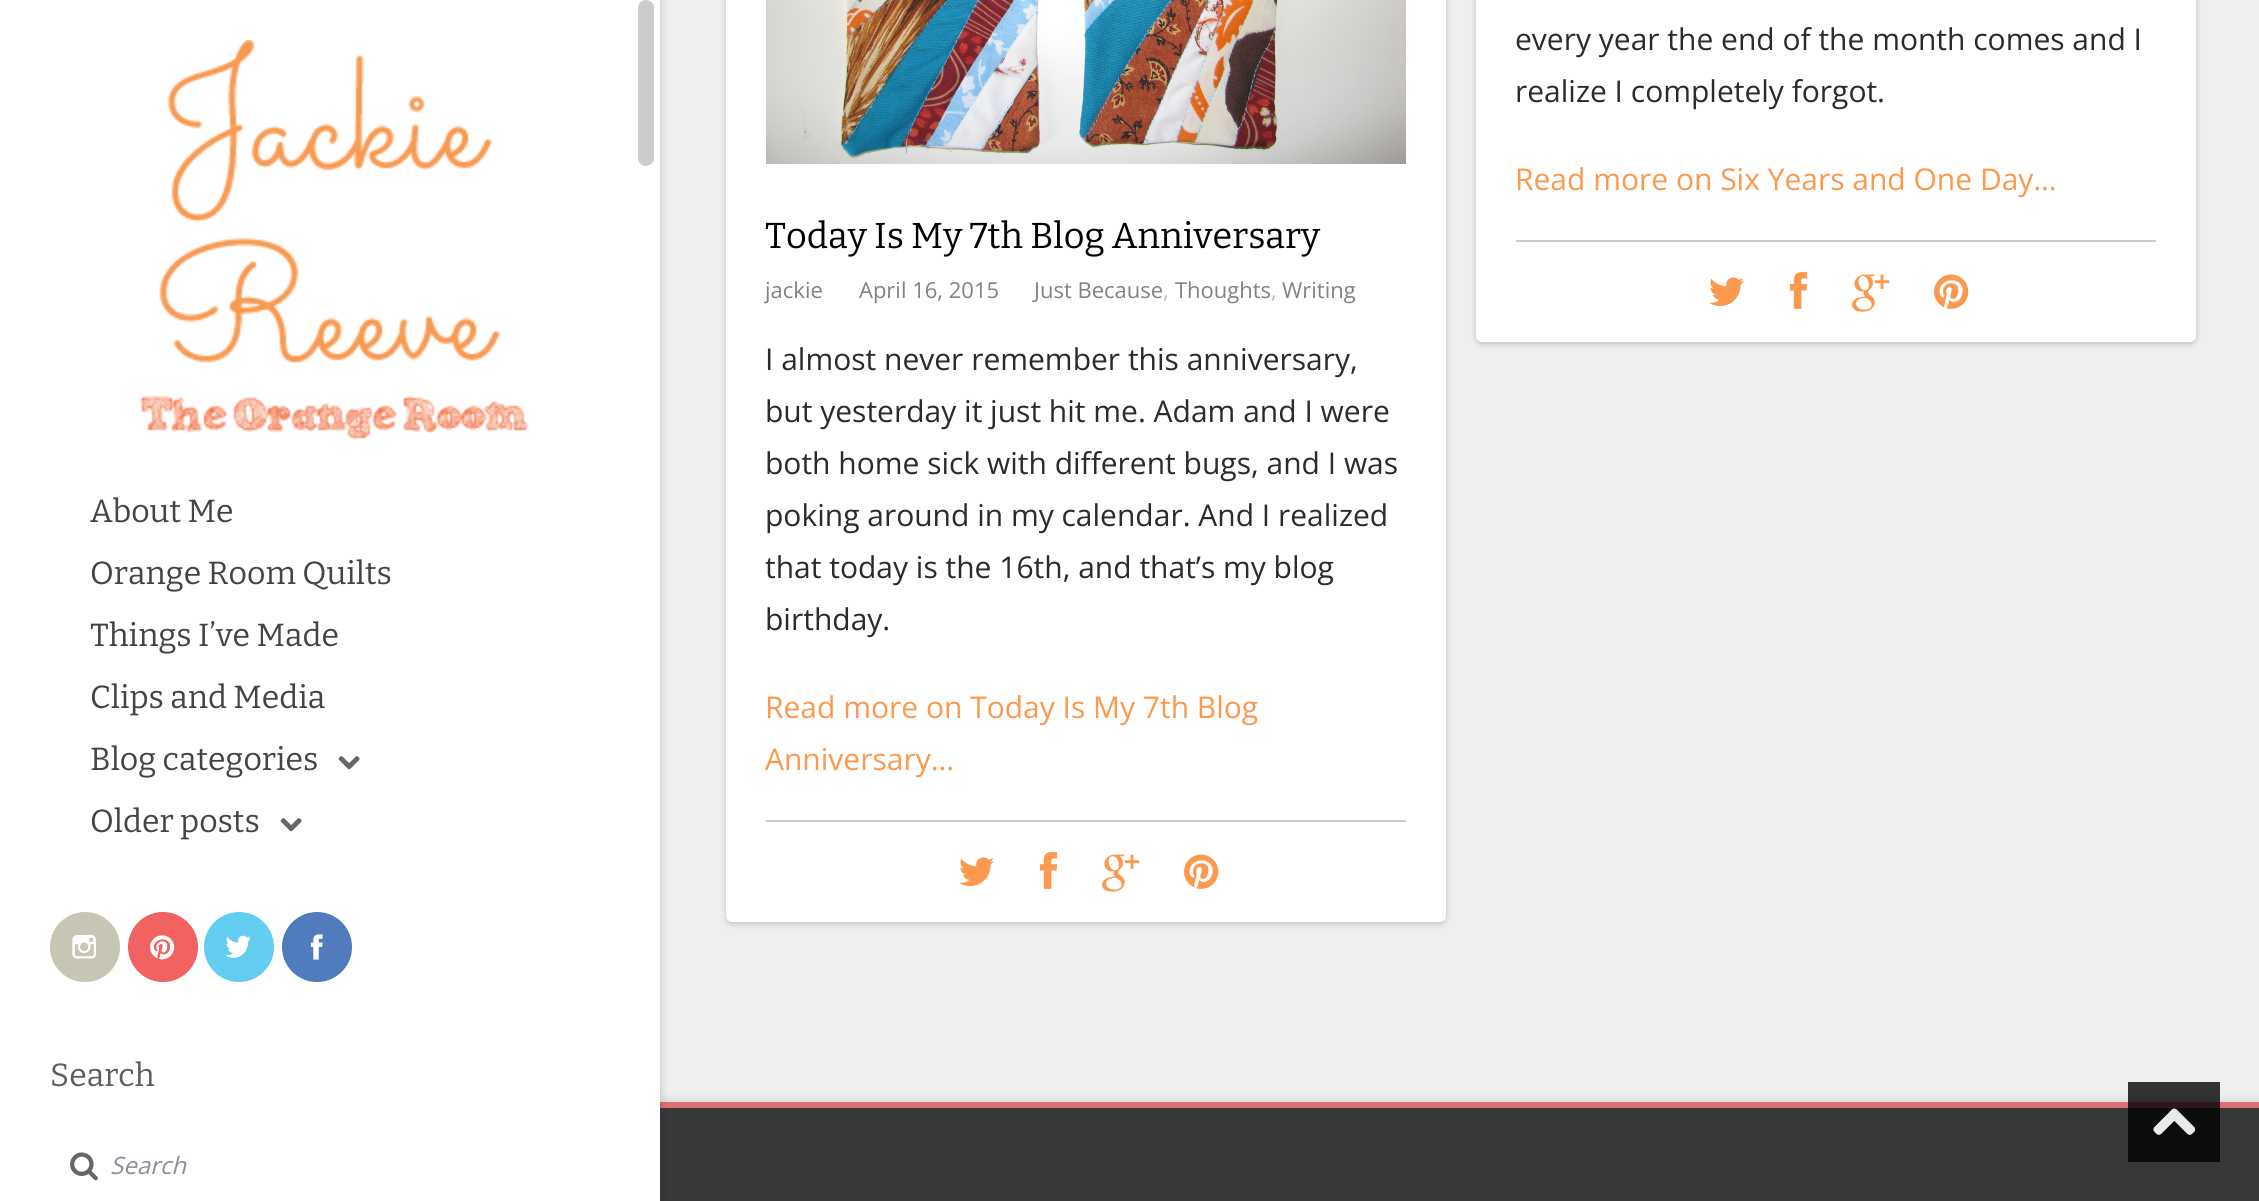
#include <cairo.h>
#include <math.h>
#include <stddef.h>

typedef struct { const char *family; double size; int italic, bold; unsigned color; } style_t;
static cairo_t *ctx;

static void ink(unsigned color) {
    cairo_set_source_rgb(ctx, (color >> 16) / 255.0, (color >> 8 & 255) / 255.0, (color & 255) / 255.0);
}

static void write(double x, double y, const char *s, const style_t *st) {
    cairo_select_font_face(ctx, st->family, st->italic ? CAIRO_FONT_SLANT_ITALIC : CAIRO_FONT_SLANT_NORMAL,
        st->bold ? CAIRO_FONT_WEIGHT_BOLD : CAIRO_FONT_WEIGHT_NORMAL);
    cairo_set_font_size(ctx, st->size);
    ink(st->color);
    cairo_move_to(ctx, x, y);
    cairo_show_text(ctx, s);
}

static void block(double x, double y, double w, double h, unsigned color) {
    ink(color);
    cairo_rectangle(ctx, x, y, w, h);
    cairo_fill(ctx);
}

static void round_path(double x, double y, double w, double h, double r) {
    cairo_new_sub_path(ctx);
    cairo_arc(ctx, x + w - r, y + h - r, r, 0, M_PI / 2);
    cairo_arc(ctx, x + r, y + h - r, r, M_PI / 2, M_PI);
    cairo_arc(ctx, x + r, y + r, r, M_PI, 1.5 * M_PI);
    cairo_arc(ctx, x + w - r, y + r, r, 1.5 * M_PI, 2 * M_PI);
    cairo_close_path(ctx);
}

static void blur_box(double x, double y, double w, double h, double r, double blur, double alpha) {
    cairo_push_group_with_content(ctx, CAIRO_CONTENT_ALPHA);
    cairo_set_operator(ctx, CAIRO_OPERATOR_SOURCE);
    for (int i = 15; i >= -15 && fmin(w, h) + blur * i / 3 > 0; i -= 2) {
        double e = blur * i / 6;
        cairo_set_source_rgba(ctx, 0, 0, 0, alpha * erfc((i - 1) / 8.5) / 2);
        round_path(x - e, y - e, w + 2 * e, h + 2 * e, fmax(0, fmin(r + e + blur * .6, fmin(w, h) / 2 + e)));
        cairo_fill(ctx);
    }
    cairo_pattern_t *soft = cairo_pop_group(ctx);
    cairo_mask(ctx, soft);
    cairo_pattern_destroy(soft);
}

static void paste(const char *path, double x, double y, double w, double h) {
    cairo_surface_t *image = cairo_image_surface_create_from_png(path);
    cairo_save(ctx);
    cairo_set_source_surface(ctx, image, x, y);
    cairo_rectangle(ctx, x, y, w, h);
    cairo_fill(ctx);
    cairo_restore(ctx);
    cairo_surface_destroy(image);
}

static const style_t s1 = {"Bitter", 32, 0, 0, 0x444444};
static const style_t s2 = {"Bitter", 32, 0, 0, 0x5f5e5c};
static const style_t s3 = {"Open Sans", 24, 1, 0, 0x898e99};
static const style_t s4 = {"Open Sans", 30, 0, 0, 0x2b2b2b};
static const style_t s5 = {"Open Sans", 30, 0, 0, 0xfc994e};
static const style_t s6 = {"Bitter", 36, 0, 0, 0x000000};
static const style_t s7 = {"Open Sans", 22, 0, 0, 0x828282};
static const style_t s8 = {"Open Sans", 22, 0, 0, 0xbbbbbb};

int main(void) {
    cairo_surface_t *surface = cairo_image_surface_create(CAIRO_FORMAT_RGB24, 2259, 1201);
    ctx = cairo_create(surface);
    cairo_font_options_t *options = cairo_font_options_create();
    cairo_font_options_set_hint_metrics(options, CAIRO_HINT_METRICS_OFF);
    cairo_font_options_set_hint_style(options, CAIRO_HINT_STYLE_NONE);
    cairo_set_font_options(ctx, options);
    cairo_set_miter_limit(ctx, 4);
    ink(0xefefef);
    cairo_paint(ctx);
    ink(0x000000);
    blur_box(660, 1102, 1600, 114, 0, 5, 0.15);
    block(660, 1108, 1599, 93, 0x383838);
    block(660, 1102, 1599, 6, 0xdc7075);
    ink(0x000000);
    blur_box(0, 0, 660, 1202, 0, 5, 0.2);
    block(0, 0, 660, 1201, 0xffffff);
    ink(0xcccccc);
    round_path(638, 0, 16, 166, 8);
    cairo_fill(ctx);
    paste("pic1.png", 139, 40, 390, 399);
    write(90, 522, "About Me", &s1);
    write(90, 584, "Orange Room Quilts", &s1);
    write(90, 646, "Things I’ve Made", &s1);
    write(90, 708, "Clips and Media", &s1);
    write(90, 770, "Blog categories", &s1);
    paste("pic2.png", 338, 756, 22, 14);
    write(90, 832, "Older posts", &s1);
    paste("pic2.png", 280, 818, 22, 14);
    paste("pic3.png", 50, 912, 70, 70);
    paste("pic4.png", 128, 912, 70, 70);
    paste("pic5.png", 204, 912, 70, 70);
    paste("pic6.png", 282, 912, 70, 70);
    write(50, 1086, "Search", &s2);
    paste("pic7.png", 70, 1152, 28, 29);
    write(110, 1174, "Search", &s3);
    ink(0x000000);
    blur_box(1476, -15, 720, 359, 6, 3, 0.2);
    ink(0xffffff);
    round_path(1476, -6, 720, 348, 6);
    cairo_fill(ctx);
    write(1515, 50, "every year the end of the month comes and I", &s4);
    write(1515, 102, "realize I completely forgot.", &s4);
    write(1515, 190, "Read more on Six Years and One Day…", &s5);
    block(1516, 240, 640, 2, 0xcccccc);
    paste("pic8.png", 1709, 277, 35, 29);
    paste("pic9.png", 1790, 272, 18, 37);
    paste("pic10.png", 1852, 274, 38, 38);
    paste("pic11.png", 1934, 274, 35, 35);
    ink(0x000000);
    blur_box(726, -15, 720, 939, 6, 3, 0.2);
    ink(0xffffff);
    round_path(726, -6, 720, 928, 6);
    cairo_fill(ctx);
    paste("pic12.png", 766, 0, 640, 164);
    write(765, 248, "Today Is My 7th Blog Anniversary", &s6);
    write(765, 298, "jackie", &s7);
    write(859, 298, "April 16, 2015", &s7);
    write(1034, 298, "Just Because", &s7);
    write(1163, 298, ",", &s8);
    write(1175, 298, "Thoughts", &s7);
    write(1271, 298, ",", &s8);
    write(1282, 298, "Writing", &s7);
    write(765, 370, "I almost never remember this anniversary,", &s4);
    write(765, 422, "but yesterday it just hit me. Adam and I were", &s4);
    write(765, 474, "both home sick with different bugs, and I was", &s4);
    write(765, 526, "poking around in my calendar. And I realized", &s4);
    write(765, 578, "that today is the 16th, and that’s my blog", &s4);
    write(765, 630, "birthday.", &s4);
    write(765, 718, "Read more on Today Is My 7th Blog", &s5);
    write(765, 770, "Anniversary…", &s5);
    block(766, 820, 640, 2, 0xcccccc);
    paste("pic8.png", 959, 857, 35, 29);
    paste("pic9.png", 1040, 852, 18, 37);
    paste("pic10.png", 1102, 854, 38, 38);
    paste("pic11.png", 1184, 854, 35, 35);
    cairo_set_source_rgba(ctx, 0, 0, 0, 0.79);
    cairo_rectangle(ctx, 2128, 1082, 92, 80);
    cairo_fill(ctx);
    paste("pic13.png", 2153, 1108, 43, 27);
    cairo_surface_write_to_png(surface, "screenshot.png");
    cairo_font_options_destroy(options);
    cairo_destroy(ctx);
    cairo_surface_destroy(surface);
    return 0;
}
